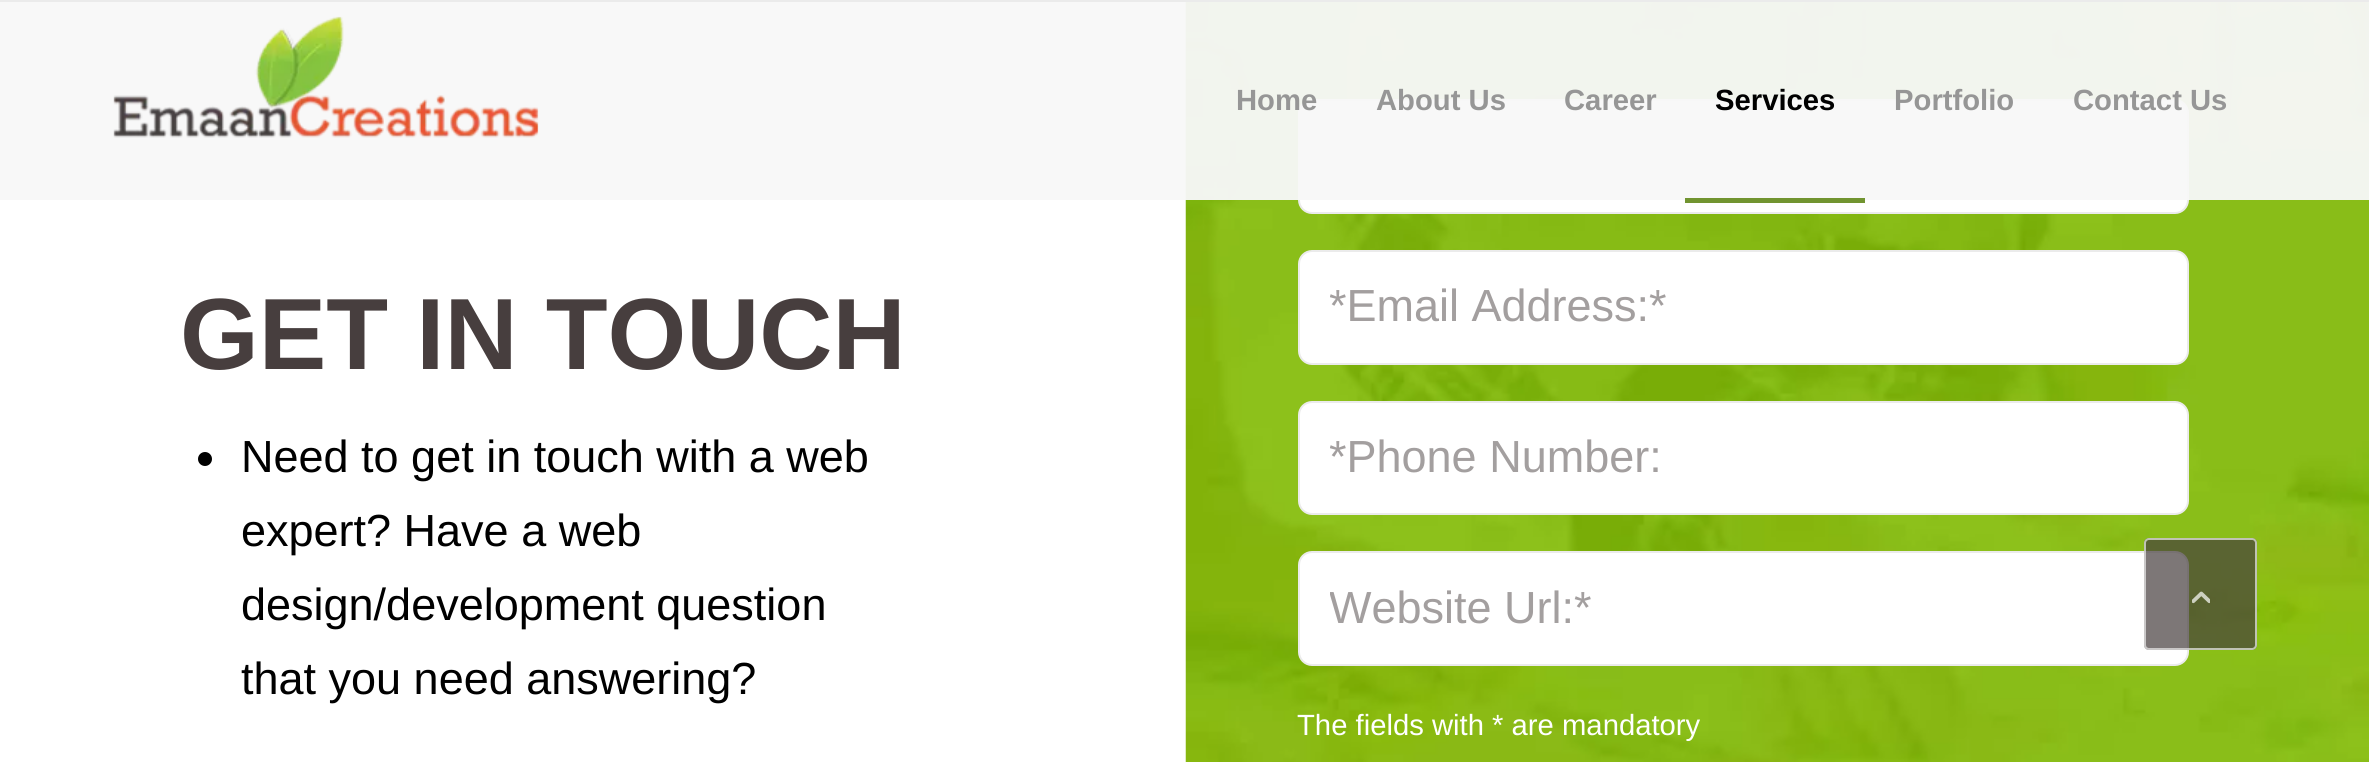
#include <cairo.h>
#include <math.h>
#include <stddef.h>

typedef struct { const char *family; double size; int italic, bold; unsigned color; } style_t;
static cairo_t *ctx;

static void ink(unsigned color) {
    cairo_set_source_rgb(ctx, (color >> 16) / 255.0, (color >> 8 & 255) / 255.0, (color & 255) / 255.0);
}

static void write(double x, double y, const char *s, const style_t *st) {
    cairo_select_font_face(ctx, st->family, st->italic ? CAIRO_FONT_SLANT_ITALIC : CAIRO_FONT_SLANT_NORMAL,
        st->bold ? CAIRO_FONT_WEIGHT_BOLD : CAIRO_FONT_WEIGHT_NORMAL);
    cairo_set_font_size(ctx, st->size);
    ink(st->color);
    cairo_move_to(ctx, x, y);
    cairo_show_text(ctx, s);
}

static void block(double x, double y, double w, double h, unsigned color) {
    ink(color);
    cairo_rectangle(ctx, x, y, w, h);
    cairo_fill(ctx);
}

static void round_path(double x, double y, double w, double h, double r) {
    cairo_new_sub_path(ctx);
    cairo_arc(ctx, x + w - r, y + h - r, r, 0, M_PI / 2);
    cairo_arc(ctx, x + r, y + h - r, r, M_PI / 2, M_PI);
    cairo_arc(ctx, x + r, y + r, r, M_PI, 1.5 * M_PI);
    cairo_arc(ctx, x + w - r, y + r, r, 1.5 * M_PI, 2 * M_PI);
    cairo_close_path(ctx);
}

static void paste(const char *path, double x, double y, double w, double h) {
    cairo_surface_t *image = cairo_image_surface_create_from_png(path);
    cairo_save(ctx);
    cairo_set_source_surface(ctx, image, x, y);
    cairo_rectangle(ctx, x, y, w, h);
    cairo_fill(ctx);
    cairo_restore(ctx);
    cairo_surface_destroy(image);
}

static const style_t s1 = {"Liberation Sans", 29.25, 0, 1, 0x969696};
static const style_t s2 = {"Liberation Sans", 29.25, 0, 1, 0x000000};
static const style_t s3 = {"Liberation Sans", 101.25, 0, 1, 0x473e3e};
static const style_t s4 = {"Liberation Sans", 45, 0, 0, 0x000000};
static const style_t s5 = {"Liberation Sans", 45, 0, 0, 0xa39f9f};
static const style_t s6 = {"Liberation Sans", 29.25, 0, 0, 0xffffff};

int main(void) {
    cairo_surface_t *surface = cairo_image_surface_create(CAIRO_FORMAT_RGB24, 2369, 762);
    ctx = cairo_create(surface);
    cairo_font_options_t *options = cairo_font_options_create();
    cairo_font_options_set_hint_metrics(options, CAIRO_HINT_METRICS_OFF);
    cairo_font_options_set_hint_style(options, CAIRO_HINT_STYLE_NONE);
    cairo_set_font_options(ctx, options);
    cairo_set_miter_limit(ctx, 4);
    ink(0xffffff);
    cairo_paint(ctx);
    paste("pic2.png", 1185, 2, 1184, 760);
    ink(0xffffff);
    round_path(1299, 100, 889, 113, 13);
    cairo_fill_preserve(ctx);
    ink(0xebebeb);
    cairo_stroke(ctx);
    cairo_set_source_rgba(ctx, 1, 1, 1, 0.95);
    cairo_rectangle(ctx, 1185, 2, 1184, 198);
    cairo_fill(ctx);
    cairo_set_source_rgba(ctx, 0.439, 0.439, 0.439, 0.05);
    cairo_rectangle(ctx, 0, 2, 2369, 198);
    cairo_fill(ctx);
    block(0, 0, 2369, 2, 0xebebeb);
    paste("pic1.png", 113, 16, 426, 122);
    write(1236, 110, "Home", &s1);
    write(1376, 110, "About Us", &s1);
    write(1564, 110, "Career", &s1);
    write(1715, 110, "Services", &s2);
    block(1685, 198, 180, 5, 0x719430);
    write(1894, 110, "Portfolio", &s1);
    write(2073, 110, "Contact Us", &s1);
    write(180, 369, "GET IN TOUCH", &s3);
    ink(0x000000);
    cairo_new_path(ctx);
    cairo_arc(ctx, 205, 459, 7, 0, 2 * M_PI);
    cairo_fill(ctx);
    write(241, 472, "Need to get in touch with a web", &s4);
    write(241, 546, "expert? Have a web", &s4);
    write(241, 620, "design/development question", &s4);
    write(241, 694, "that you need answering?", &s4);
    ink(0xffffff);
    round_path(1299, 251, 889, 113, 13);
    cairo_fill_preserve(ctx);
    ink(0xebebeb);
    cairo_stroke(ctx);
    cairo_save(ctx);
    cairo_rectangle(ctx, 1330, 281, 828, 52);
    cairo_clip(ctx);
    write(1329, 321, "*Email Address:*", &s5);
    cairo_restore(ctx);
    ink(0xffffff);
    round_path(1299, 402, 889, 112, 13);
    cairo_fill_preserve(ctx);
    ink(0xebebeb);
    cairo_stroke(ctx);
    cairo_save(ctx);
    cairo_rectangle(ctx, 1330, 432, 828, 52);
    cairo_clip(ctx);
    write(1329, 472, "*Phone Number:", &s5);
    cairo_restore(ctx);
    ink(0xffffff);
    round_path(1299, 552, 889, 113, 13);
    cairo_fill_preserve(ctx);
    ink(0xebebeb);
    cairo_stroke(ctx);
    cairo_save(ctx);
    cairo_rectangle(ctx, 1330, 583, 828, 52);
    cairo_clip(ctx);
    write(1329, 623, "Website Url:*", &s5);
    cairo_restore(ctx);
    write(1297, 735, "The fields with * are mandatory", &s6);
    cairo_set_source_rgba(ctx, 0.278, 0.243, 0.243, 0.7);
    round_path(2144, 538, 113, 112, 5);
    cairo_fill(ctx);
    round_path(2145, 539, 111, 110, 4);
    cairo_set_source_rgba(ctx, 0.922, 0.922, 0.922, 0.7);
    cairo_stroke(ctx);
    paste("pic3.png", 2192, 591, 18, 13);
    cairo_surface_write_to_png(surface, "screenshot.png");
    cairo_font_options_destroy(options);
    cairo_destroy(ctx);
    cairo_surface_destroy(surface);
    return 0;
}
